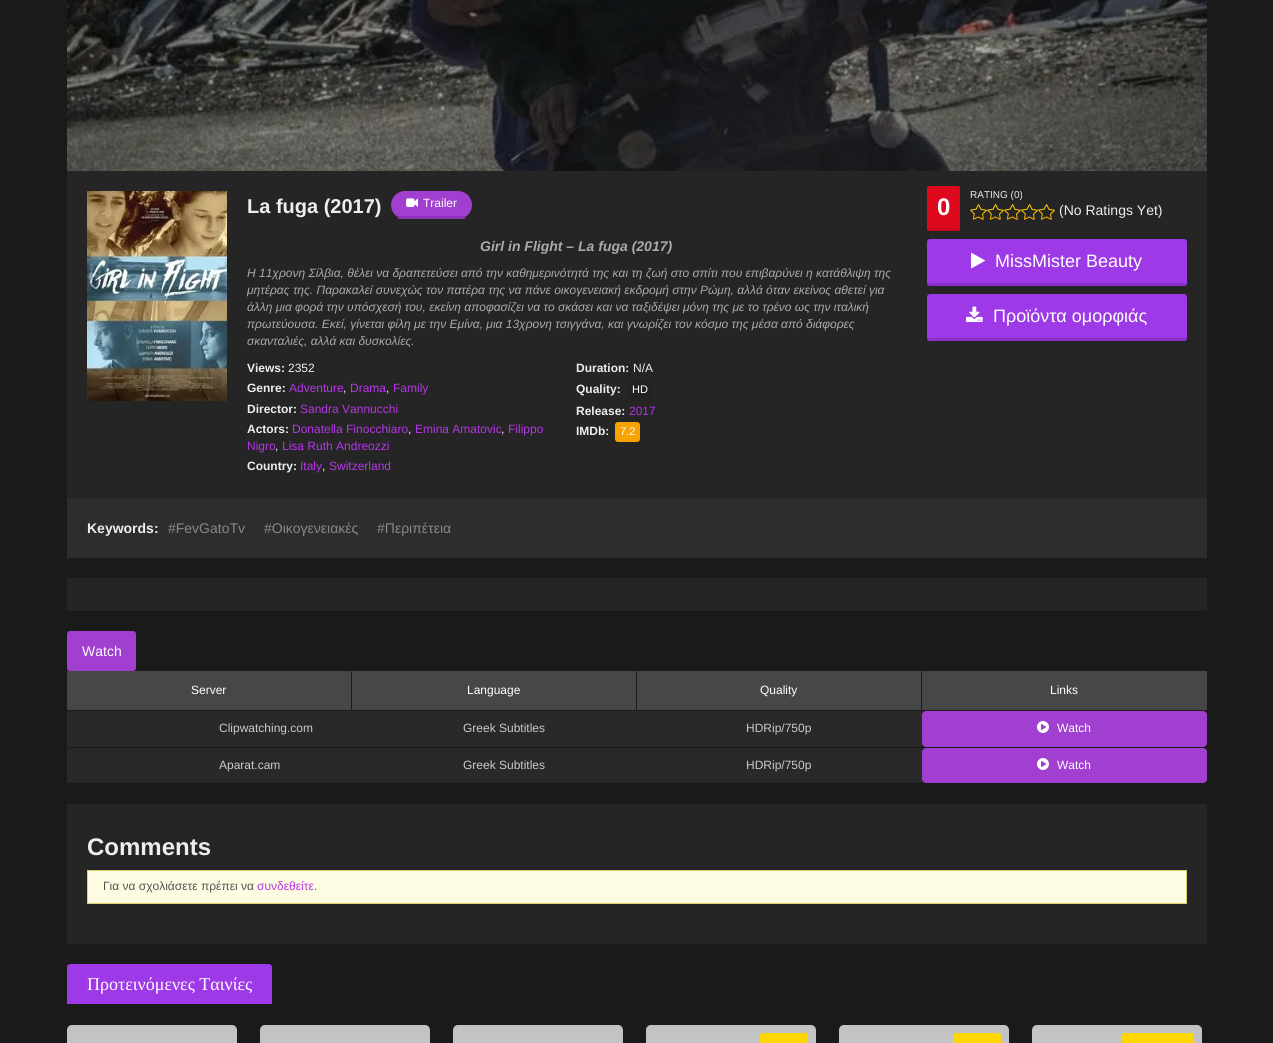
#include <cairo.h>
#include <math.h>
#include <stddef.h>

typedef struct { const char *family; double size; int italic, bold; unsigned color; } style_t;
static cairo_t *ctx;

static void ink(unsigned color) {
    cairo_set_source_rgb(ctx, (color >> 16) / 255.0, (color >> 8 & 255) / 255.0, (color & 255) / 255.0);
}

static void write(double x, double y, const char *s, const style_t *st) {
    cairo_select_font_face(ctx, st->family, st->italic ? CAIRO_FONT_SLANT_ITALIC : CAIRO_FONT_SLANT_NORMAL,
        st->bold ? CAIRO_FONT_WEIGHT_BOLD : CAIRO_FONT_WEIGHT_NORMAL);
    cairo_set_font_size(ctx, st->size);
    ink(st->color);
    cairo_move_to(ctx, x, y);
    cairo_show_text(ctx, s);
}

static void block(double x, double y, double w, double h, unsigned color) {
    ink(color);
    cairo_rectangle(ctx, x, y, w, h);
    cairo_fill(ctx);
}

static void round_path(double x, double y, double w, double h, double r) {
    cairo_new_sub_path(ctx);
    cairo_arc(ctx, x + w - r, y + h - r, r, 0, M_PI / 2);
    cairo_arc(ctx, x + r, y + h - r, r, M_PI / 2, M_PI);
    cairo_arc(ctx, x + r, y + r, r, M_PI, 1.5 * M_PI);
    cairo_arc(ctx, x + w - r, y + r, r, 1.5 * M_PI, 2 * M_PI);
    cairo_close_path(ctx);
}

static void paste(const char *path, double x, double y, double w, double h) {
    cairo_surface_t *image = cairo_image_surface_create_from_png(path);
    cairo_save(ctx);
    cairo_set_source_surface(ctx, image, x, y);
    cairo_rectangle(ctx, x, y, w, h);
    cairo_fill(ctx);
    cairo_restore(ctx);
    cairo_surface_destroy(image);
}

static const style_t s1 = {"Liberation Sans", 20, 0, 1, 0xeeeeee};
static const style_t s2 = {"Liberation Sans", 12, 0, 0, 0xffffff};
static const style_t s3 = {"Liberation Sans", 14, 1, 1, 0xaaaaaa};
static const style_t s4 = {"Liberation Sans", 12, 1, 0, 0xaaaaaa};
static const style_t s5 = {"Liberation Sans", 12, 0, 1, 0xeeeeee};
static const style_t s6 = {"Liberation Sans", 12, 0, 0, 0xeeeeee};
static const style_t s7 = {"Liberation Sans", 12, 0, 0, 0xb536e6};
static const style_t s8 = {"Liberation Sans", 11, 0, 0, 0xffffff};
static const style_t s9 = {"Liberation Sans", 10, 0, 0, 0xeeeeee};
static const style_t s10 = {"Liberation Sans", 24, 0, 1, 0xffffff};
static const style_t s11 = {"Liberation Sans", 14, 0, 0, 0xeeeeee};
static const style_t s12 = {"Liberation Sans", 18, 0, 0, 0xffffff};
static const style_t s13 = {"Liberation Sans", 14, 0, 1, 0xeeeeee};
static const style_t s14 = {"Liberation Sans", 14, 0, 0, 0x888888};
static const style_t s15 = {"Liberation Sans", 14, 0, 0, 0xffffff};
static const style_t s16 = {"Liberation Sans", 12, 0, 0, 0xcacaca};
static const style_t s17 = {"Liberation Sans", 24, 0, 1, 0xeeeeee};
static const style_t s18 = {"Liberation Sans", 12, 0, 0, 0x545454};
static const style_t s19 = {"Liberation Serif", 18, 0, 0, 0xffffff};

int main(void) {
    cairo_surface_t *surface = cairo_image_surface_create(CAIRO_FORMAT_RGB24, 1273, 1043);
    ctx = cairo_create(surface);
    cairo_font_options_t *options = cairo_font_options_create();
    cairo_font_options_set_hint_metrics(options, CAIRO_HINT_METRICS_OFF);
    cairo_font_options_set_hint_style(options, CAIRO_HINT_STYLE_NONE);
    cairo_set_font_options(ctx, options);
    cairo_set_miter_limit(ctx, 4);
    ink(0x1a1a1a);
    cairo_paint(ctx);
    paste("pic1.png", 67, 0, 1140, 171);
    block(67, 171, 1140, 327, 0x252525);
    paste("pic2.png", 87, 191, 140, 210);
    write(247, 213, "La fuga (2017)", &s1);
    ink(0xa03fd0);
    round_path(391, 191, 81, 28, 14);
    cairo_fill(ctx);
    block(398, 216, 67, 3, 0x8c33b9);
    paste("pic3.png", 406, 198, 12, 9);
    write(423, 207, "Trailer", &s2);
    write(480, 251, "Girl in Flight – La fuga (2017)", &s3);
    write(247, 277, "H 11χρονη Σίλβια, θέλει να δραπετεύσει από την καθημερινότητά της και τη ζωή στο σπίτι που επιβαρύνει η κατάθλιψη της", &s4);
    write(247, 294, "μητέρας της. Παρακαλεί συνεχώς τον πατέρα της να πάνε οικογενειακή εκδρομή στην Ρώμη, αλλά όταν εκείνος αθετεί για", &s4);
    write(247, 311, "άλλη μια φορά την υπόσχεσή του, εκείνη αποφασίζει να το σκάσει και να ταξιδέψει μόνη της με το τρένο ως την ιταλική", &s4);
    write(247, 328, "πρωτεύουσα. Εκεί, γίνεται φίλη με την Εμίνα, μια 13χρονη τσιγγάνα, και γνωρίζει τον κόσμο της μέσα από διάφορες", &s4);
    write(247, 345, "σκανταλιές, αλλά και δυσκολίες.", &s4);
    write(247, 372, "Views:", &s5);
    write(288, 372, "2352", &s6);
    write(247, 392, "Genre:", &s5);
    write(289, 392, "Adventure", &s7);
    write(343, 392, ",", &s6);
    write(350, 392, "Drama", &s7);
    write(386, 392, ",", &s6);
    write(393, 392, "Family", &s7);
    write(247, 413, "Director:", &s5);
    write(300, 413, "Sandra Vannucchi", &s7);
    write(247, 433, "Actors:", &s5);
    write(292, 433, "Donatella Finocchiaro", &s7);
    write(408, 433, ",", &s6);
    write(415, 433, "Emina Amatovic", &s7);
    write(501, 433, ",", &s6);
    write(508, 433, "Filippo", &s7);
    write(247, 450, "Nigro", &s7);
    write(275, 450, ",", &s6);
    write(282, 450, "Lisa Ruth Andreozzi", &s7);
    write(247, 470, "Country:", &s5);
    write(300, 470, "Italy", &s7);
    write(322, 470, ",", &s6);
    write(329, 470, "Switzerland", &s7);
    write(576, 372, "Duration:", &s5);
    write(633, 372, "N/A", &s6);
    write(576, 393, "Quality:", &s5);
    ink(0x222222);
    round_path(627, 380, 25, 20, 3);
    cairo_fill(ctx);
    write(632, 393, "HD", &s8);
    write(576, 415, "Release:", &s5);
    write(629, 415, "2017", &s7);
    write(576, 435, "IMDb:", &s5);
    ink(0xf9a302);
    round_path(615, 422, 25, 20, 3);
    cairo_fill(ctx);
    write(620, 435, "7.2", &s8);
    write(970, 198, "RATING (0)", &s9);
    ink(0xdf091e);
    round_path(927, 186, 33, 45, 2);
    cairo_fill(ctx);
    block(928, 228, 31, 3, 0xcc091c);
    write(937, 215, "0", &s10);
    paste("pic4.png", 970, 204, 17, 16);
    paste("pic4.png", 987, 204, 17, 16);
    paste("pic4.png", 1004, 204, 17, 16);
    paste("pic4.png", 1021, 204, 17, 16);
    paste("pic4.png", 1038, 204, 17, 16);
    write(1059, 215, "(No Ratings Yet)", &s11);
    ink(0x9e39e8);
    round_path(927, 239, 260, 47, 3);
    cairo_fill(ctx);
    block(929, 283, 257, 3, 0x8d2ec7);
    paste("pic5.png", 971, 252, 15, 17);
    write(995, 267, "MissMister Beauty", &s12);
    ink(0x9e39e8);
    round_path(927, 294, 260, 47, 3);
    cairo_fill(ctx);
    block(929, 338, 257, 3, 0x8d2ec7);
    paste("pic6.png", 966, 306, 17, 16);
    write(993, 322, "Προϊόντα ομορφιάς", &s12);
    block(67, 498, 1140, 60, 0x2d2d2d);
    write(87, 533, "Keywords:", &s13);
    write(168, 533, "#FevGatoTv", &s14);
    write(264, 533, "#Οικογενειακές", &s14);
    write(377, 533, "#Περιπέτεια", &s14);
    block(67, 578, 1140, 33, 0x252525);
    ink(0xa03fd0);
    round_path(67, 631, 69, 40, 3);
    cairo_fill(ctx);
    write(82, 656, "Watch", &s15);
    block(67, 671, 1140, 39, 0x474747);
    ink(0x1a1a1a);
    cairo_new_path(ctx);
    cairo_move_to(ctx, 352, 671);
    cairo_line_to(ctx, 352, 710);
    cairo_line_to(ctx, 351, 709);
    cairo_line_to(ctx, 351, 672);
    cairo_close_path(ctx);
    cairo_fill(ctx);
    write(191, 694, "Server", &s2);
    ink(0x1a1a1a);
    cairo_new_path(ctx);
    cairo_move_to(ctx, 637, 671);
    cairo_line_to(ctx, 637, 710);
    cairo_line_to(ctx, 636, 709);
    cairo_line_to(ctx, 636, 672);
    cairo_close_path(ctx);
    cairo_fill(ctx);
    write(467, 694, "Language", &s2);
    ink(0x1a1a1a);
    cairo_new_path(ctx);
    cairo_move_to(ctx, 922, 671);
    cairo_line_to(ctx, 922, 710);
    cairo_line_to(ctx, 921, 709);
    cairo_line_to(ctx, 921, 672);
    cairo_close_path(ctx);
    cairo_fill(ctx);
    write(760, 694, "Quality", &s2);
    write(1050, 694, "Links", &s2);
    block(67, 711, 855, 36, 0x292929);
    write(219, 732, "Clipwatching.com", &s16);
    write(463, 732, "Greek Subtitles", &s16);
    write(746, 732, "HDRip/750p", &s16);
    ink(0xa03fd0);
    round_path(922, 711, 285, 36, 4);
    cairo_fill(ctx);
    paste("pic7.png", 1037, 721, 12, 12);
    write(1057, 732, "Watch", &s2);
    block(67, 748, 855, 35, 0x292929);
    write(219, 769, "Aparat.cam", &s16);
    write(463, 769, "Greek Subtitles", &s16);
    write(746, 769, "HDRip/750p", &s16);
    ink(0xa03fd0);
    round_path(922, 748, 285, 35, 4);
    cairo_fill(ctx);
    paste("pic7.png", 1037, 758, 12, 12);
    write(1057, 769, "Watch", &s2);
    block(67, 804, 1140, 140, 0x252525);
    write(87, 855, "Comments", &s17);
    ink(0xfdfce2);
    cairo_rectangle(ctx, 87.5, 870.5, 1099, 33);
    cairo_fill_preserve(ctx);
    ink(0xdcd06a);
    cairo_set_line_width(ctx, 1);
    cairo_stroke(ctx);
    write(103, 890, "Για να σχολιάσετε πρέπει να", &s18);
    write(257, 890, "συνδεθείτε", &s7);
    write(314, 890, ".", &s18);
    ink(0x9e39e8);
    cairo_new_path(ctx);
    cairo_move_to(ctx, 70, 964);
    cairo_line_to(ctx, 269, 964);
    cairo_curve_to(ctx, 270.5, 964, 272, 965.5, 272, 967);
    cairo_line_to(ctx, 272, 1004);
    cairo_line_to(ctx, 67, 1004);
    cairo_line_to(ctx, 67, 967);
    cairo_curve_to(ctx, 67, 965.5, 68.5, 964, 70, 964);
    cairo_close_path(ctx);
    cairo_fill(ctx);
    write(87, 990, "Προτεινόμενες Ταινίες", &s19);
    paste("pic8.png", 67, 1025, 170, 18);
    paste("pic8.png", 260, 1025, 170, 18);
    paste("pic8.png", 453, 1025, 170, 18);
    paste("pic8.png", 646, 1025, 170, 18);
    ink(0xfed700);
    round_path(760, 1033, 48, 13, 3);
    cairo_fill(ctx);
    paste("pic8.png", 839, 1025, 170, 18);
    round_path(953, 1033, 48, 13, 3);
    cairo_fill(ctx);
    paste("pic8.png", 1032, 1025, 170, 18);
    round_path(1122, 1033, 72, 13, 3);
    cairo_fill(ctx);
    cairo_surface_write_to_png(surface, "screenshot.png");
    cairo_font_options_destroy(options);
    cairo_destroy(ctx);
    cairo_surface_destroy(surface);
    return 0;
}
